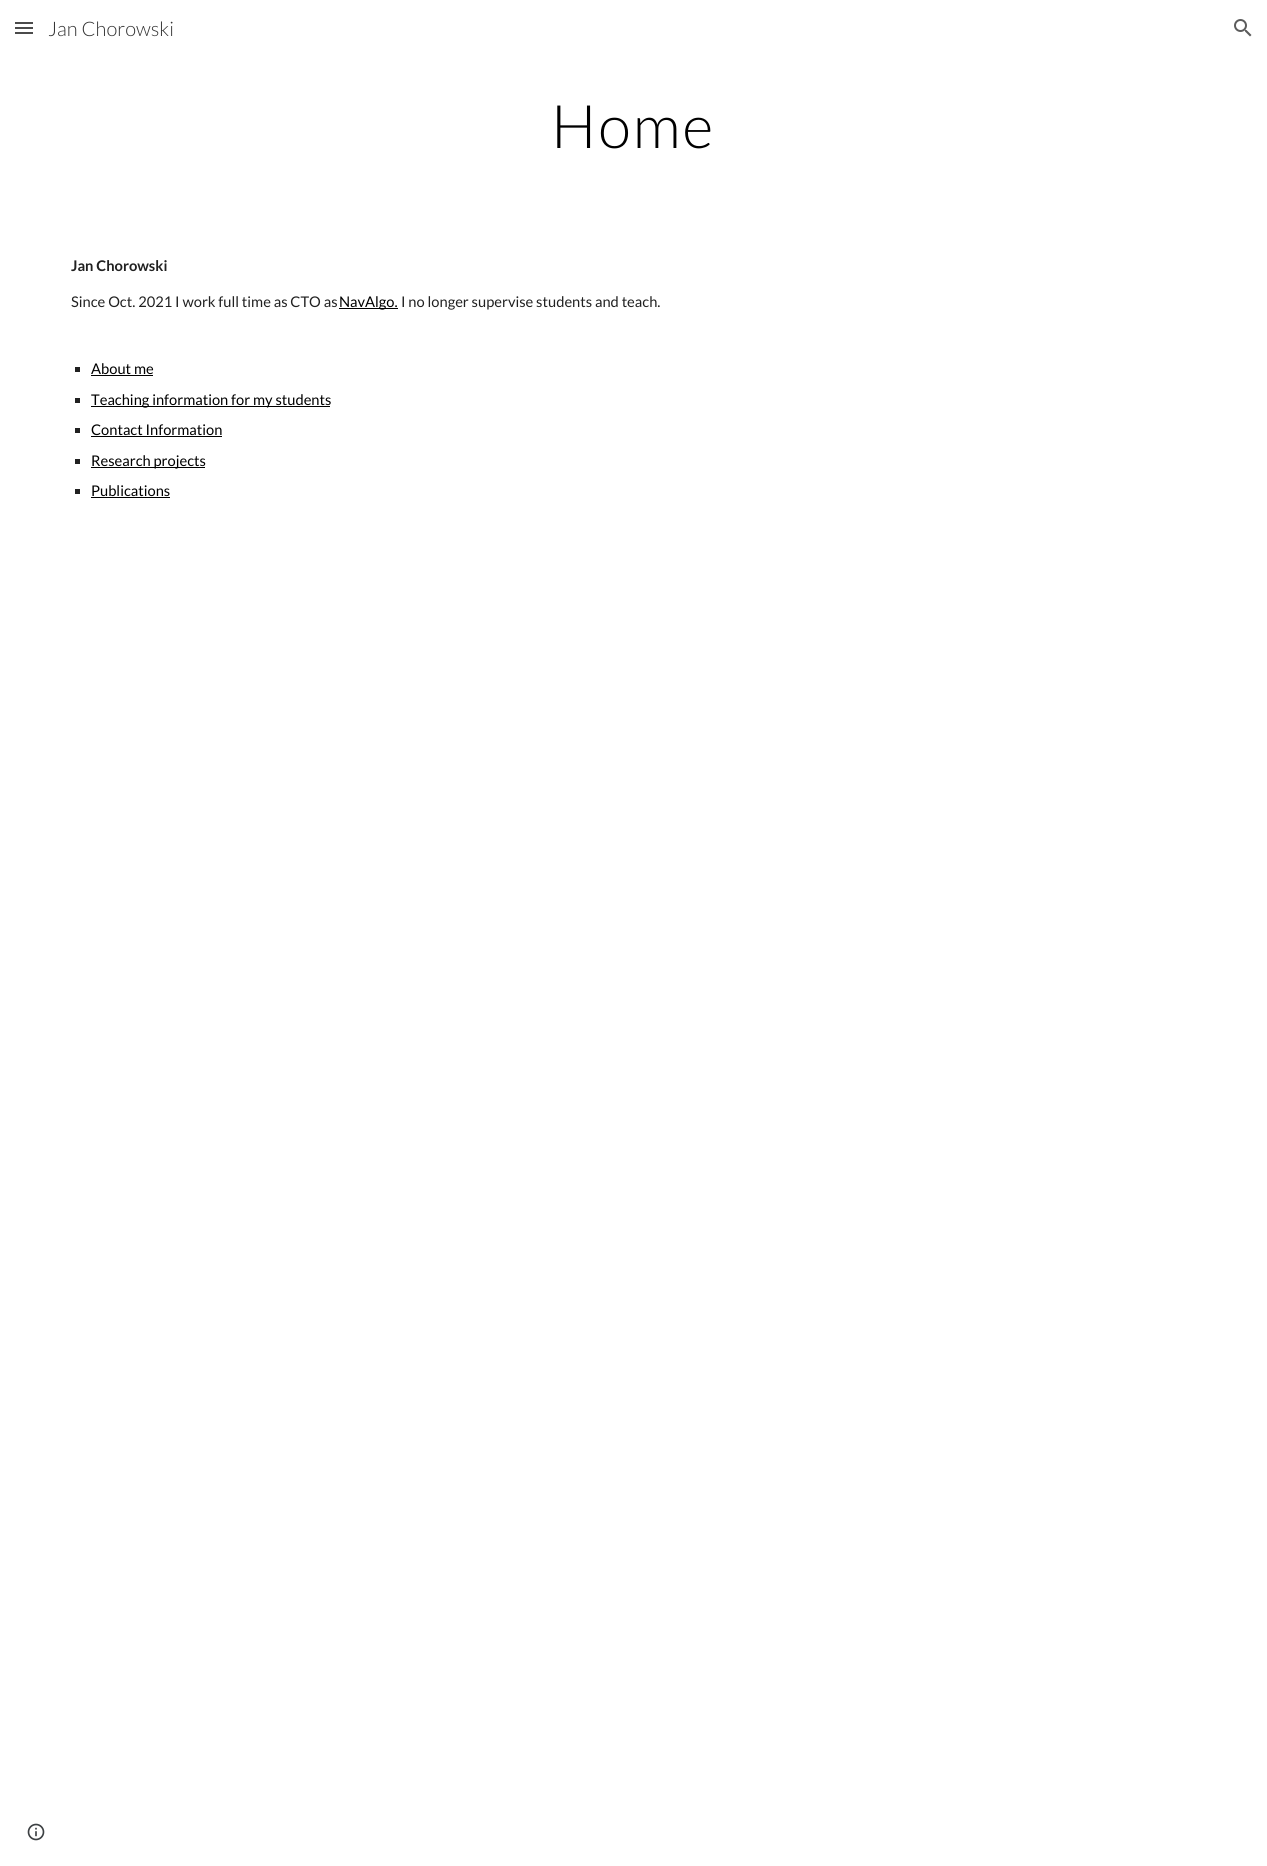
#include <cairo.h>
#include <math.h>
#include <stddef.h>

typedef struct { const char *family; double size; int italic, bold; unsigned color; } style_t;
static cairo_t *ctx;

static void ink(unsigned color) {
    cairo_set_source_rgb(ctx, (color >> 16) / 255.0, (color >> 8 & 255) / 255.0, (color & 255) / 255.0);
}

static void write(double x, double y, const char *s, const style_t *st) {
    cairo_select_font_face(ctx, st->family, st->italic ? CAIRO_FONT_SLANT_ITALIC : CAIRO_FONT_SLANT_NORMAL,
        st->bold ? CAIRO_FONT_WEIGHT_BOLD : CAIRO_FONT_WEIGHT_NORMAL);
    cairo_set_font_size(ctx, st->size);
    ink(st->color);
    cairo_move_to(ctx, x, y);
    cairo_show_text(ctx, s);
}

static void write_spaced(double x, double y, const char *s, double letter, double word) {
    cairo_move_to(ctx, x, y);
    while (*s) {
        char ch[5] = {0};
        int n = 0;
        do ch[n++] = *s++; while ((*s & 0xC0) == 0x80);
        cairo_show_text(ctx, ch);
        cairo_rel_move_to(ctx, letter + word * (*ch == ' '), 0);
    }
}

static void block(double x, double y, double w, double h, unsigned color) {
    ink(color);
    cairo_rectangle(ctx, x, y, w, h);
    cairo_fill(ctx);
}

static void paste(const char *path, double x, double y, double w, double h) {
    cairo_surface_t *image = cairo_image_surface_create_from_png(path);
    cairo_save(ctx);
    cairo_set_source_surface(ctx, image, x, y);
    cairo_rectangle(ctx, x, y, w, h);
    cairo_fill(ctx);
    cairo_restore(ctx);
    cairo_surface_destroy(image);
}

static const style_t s1 = {"Lato Light", 20, 0, 0, 0x333333};
static const style_t s2 = {"Lato", 14.7, 0, 1, 0x212121};
static const style_t s3 = {"Lato", 14.7, 0, 0, 0x212121};
static const style_t s4 = {"Lato", 14.7, 0, 0, 0x000000};

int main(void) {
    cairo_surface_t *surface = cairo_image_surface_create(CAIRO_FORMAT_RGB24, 1267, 1866);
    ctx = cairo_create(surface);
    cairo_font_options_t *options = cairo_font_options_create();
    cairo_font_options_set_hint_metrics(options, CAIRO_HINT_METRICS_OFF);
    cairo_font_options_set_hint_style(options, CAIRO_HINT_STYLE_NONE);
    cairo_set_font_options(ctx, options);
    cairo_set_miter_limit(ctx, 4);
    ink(0xffffff);
    cairo_paint(ctx);
    block(15, 22, 18, 2, 0x4b4b4b);
    block(15, 27, 18, 2, 0x4b4b4b);
    block(15, 32, 18, 2, 0x4b4b4b);
    write(48, 36, "Jan Chorowski", &s1);
    paste("pic1.png", 1234, 19, 18, 18);
    cairo_set_font_size(ctx, 60);
    ink(0x000000);
    write_spaced(551, 148, "Home", 2, 0);
    write(71, 271, "Jan Chorowski", &s2);
    write(71, 307, "Since Oct. 2021 I work full time as CTO as", &s3);
    block(339, 308, 59, 1, 0x000000);
    write(339, 307, "NavAlgo.", &s4);
    write(401, 307, "I no longer supervise students and teach.", &s3);
    block(75, 367, 5, 5, 0x212121);
    write(91, 374, "About me", &s4);
    block(91, 375, 62, 1, 0x000000);
    block(75, 398, 5, 5, 0x212121);
    block(91, 406, 239, 1, 0x000000);
    write(91, 405, "Teaching information for my students", &s4);
    block(75, 428, 5, 5, 0x212121);
    write(91, 435, "Contact Information", &s4);
    block(91, 436, 131, 1, 0x000000);
    block(75, 459, 5, 5, 0x212121);
    block(91, 467, 114, 1, 0x000000);
    write(91, 466, "Research projects", &s4);
    block(75, 489, 5, 5, 0x212121);
    write(91, 496, "Publications", &s4);
    block(91, 497, 79, 1, 0x000000);
    paste("pic2.png", 27, 1823, 18, 18);
    cairo_surface_write_to_png(surface, "screenshot.png");
    cairo_font_options_destroy(options);
    cairo_destroy(ctx);
    cairo_surface_destroy(surface);
    return 0;
}
